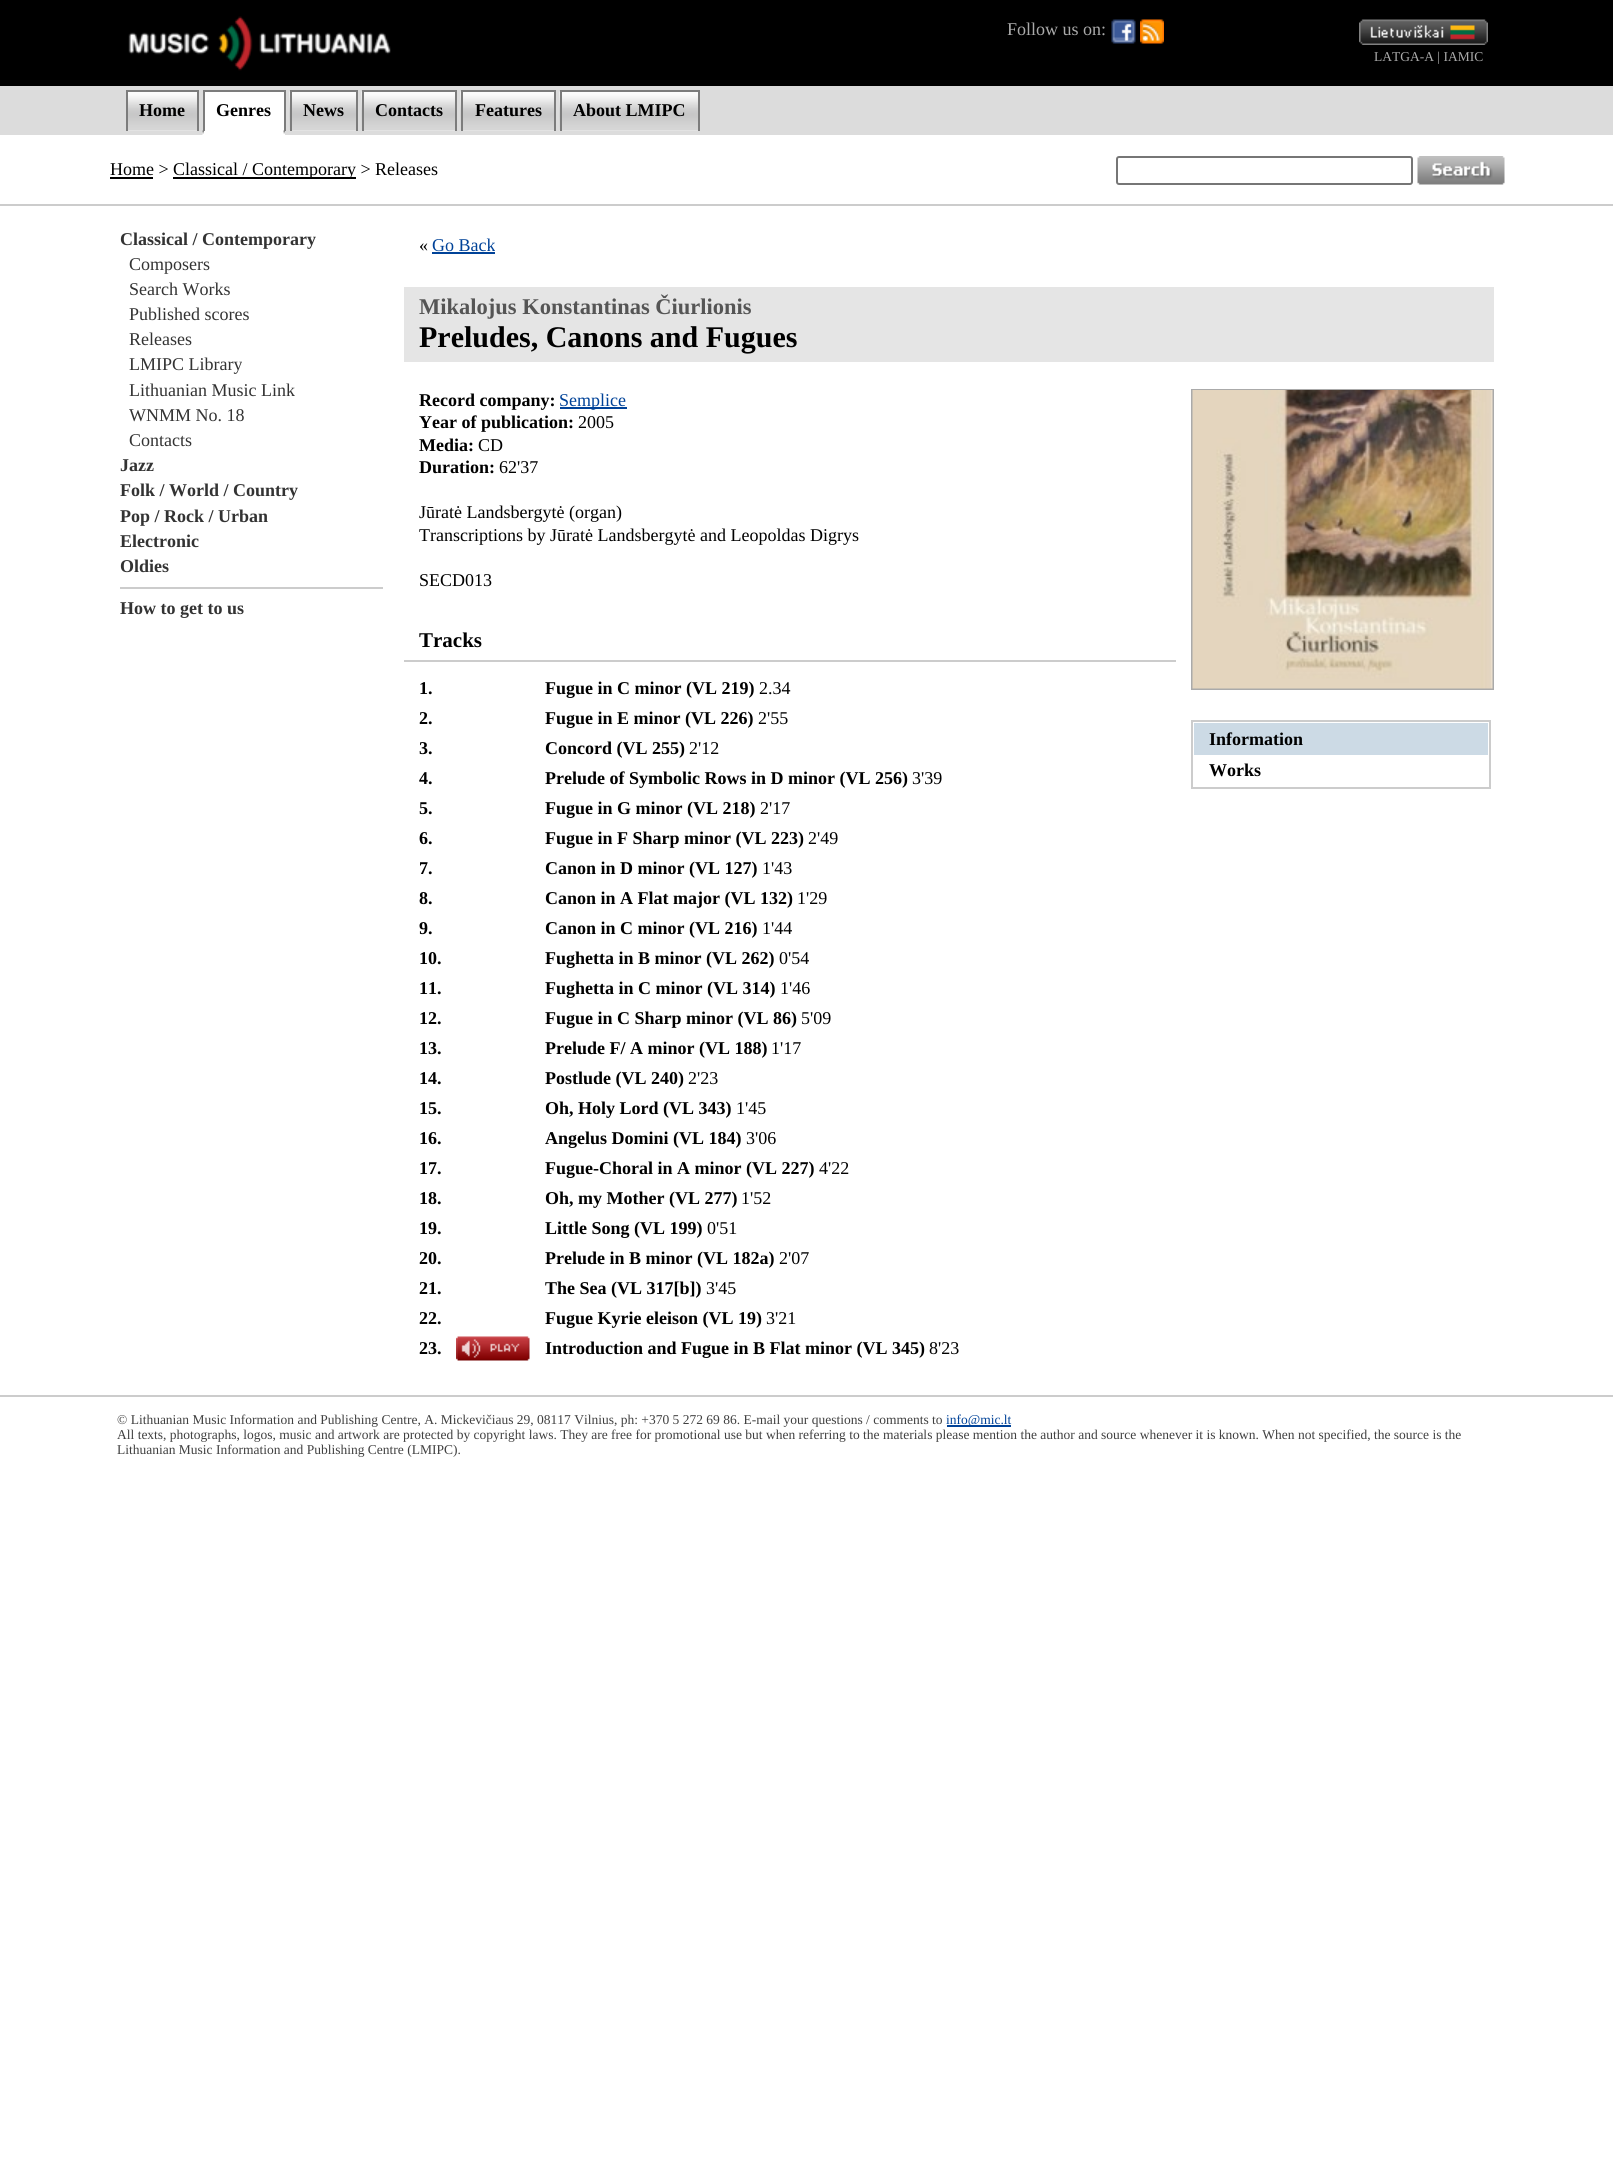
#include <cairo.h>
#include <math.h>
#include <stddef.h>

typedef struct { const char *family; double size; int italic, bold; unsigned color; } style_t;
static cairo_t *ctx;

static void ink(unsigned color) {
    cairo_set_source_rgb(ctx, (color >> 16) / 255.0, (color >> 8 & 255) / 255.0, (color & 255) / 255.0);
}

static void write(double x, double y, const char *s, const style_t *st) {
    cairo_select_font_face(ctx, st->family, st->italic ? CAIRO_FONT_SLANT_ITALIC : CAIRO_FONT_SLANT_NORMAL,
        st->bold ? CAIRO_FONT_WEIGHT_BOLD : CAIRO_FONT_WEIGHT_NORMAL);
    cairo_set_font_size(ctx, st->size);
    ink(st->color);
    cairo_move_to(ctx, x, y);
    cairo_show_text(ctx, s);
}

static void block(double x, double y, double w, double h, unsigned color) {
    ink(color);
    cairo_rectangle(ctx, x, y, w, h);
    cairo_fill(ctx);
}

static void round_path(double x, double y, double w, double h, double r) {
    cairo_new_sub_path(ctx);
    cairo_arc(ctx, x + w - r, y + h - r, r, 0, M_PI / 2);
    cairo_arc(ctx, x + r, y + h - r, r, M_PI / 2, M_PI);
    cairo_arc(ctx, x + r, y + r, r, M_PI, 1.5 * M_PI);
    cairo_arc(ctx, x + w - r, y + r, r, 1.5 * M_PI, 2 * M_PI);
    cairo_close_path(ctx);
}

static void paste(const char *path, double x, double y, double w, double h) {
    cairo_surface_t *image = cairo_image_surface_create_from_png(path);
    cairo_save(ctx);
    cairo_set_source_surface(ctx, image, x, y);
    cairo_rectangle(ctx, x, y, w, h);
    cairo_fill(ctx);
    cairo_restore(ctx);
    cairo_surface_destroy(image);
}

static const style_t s1 = {"Liberation Serif", 18, 0, 0, 0xaaaaaa};
static const style_t s2 = {"Liberation Serif", 13.5, 0, 0, 0xaaaaaa};
static const style_t s3 = {"Liberation Serif", 18, 0, 1, 0x000000};
static const style_t s4 = {"Liberation Serif", 18, 0, 0, 0x000000};
static const style_t s5 = {"Liberation Serif", 18, 0, 1, 0x333333};
static const style_t s6 = {"Liberation Serif", 18, 0, 0, 0x333333};
static const style_t s7 = {"Liberation Serif", 18, 0, 0, 0x004298};
static const style_t s8 = {"Liberation Serif", 22.5, 0, 1, 0x555555};
static const style_t s9 = {"Liberation Serif", 30, 0, 1, 0x000000};
static const style_t s10 = {"Liberation Serif", 21, 0, 1, 0x000000};
static const style_t s11 = {"Liberation Serif", 13.5, 0, 0, 0x404040};
static const style_t s12 = {"Liberation Serif", 13.5, 0, 0, 0x004298};

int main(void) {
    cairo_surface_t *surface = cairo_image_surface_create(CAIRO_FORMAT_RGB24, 1613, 2178);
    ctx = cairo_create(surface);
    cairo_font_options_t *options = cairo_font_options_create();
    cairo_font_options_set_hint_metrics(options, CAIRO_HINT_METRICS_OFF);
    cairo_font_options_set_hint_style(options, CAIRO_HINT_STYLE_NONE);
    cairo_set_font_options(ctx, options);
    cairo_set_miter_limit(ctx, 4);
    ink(0xffffff);
    cairo_paint(ctx);
    block(0, 0, 1613, 86, 0x000000);
    paste("pic1.png", 128, 16, 263, 55);
    write(1007, 35, "Follow us on:", &s1);
    paste("pic2.png", 1111, 19, 25, 25);
    paste("pic3.png", 1140, 19, 24, 25);
    paste("pic4.png", 1359, 19, 129, 26);
    write(1374, 61, "LATGA-A | IAMIC", &s2);
    block(0, 86, 1613, 49, 0xdcdcdc);
    paste("pic5.png", 128, 92, 69, 39);
    block(126, 90, 72, 2, 0x7c7c7c);
    block(197, 90, 2, 41, 0x7c7c7c);
    block(126, 90, 2, 41, 0x7c7c7c);
    write(139, 116, "Home", &s3);
    block(205, 92, 79, 39, 0xffffff);
    block(203, 90, 82, 2, 0x7c7c7c);
    block(284, 90, 2, 41, 0x7c7c7c);
    block(203, 90, 2, 41, 0x7c7c7c);
    write(216, 116, "Genres", &s3);
    paste("pic6.png", 289, 90, 67, 41);
    block(290, 90, 67, 2, 0x7c7c7c);
    block(356, 90, 2, 41, 0x7c7c7c);
    block(290, 90, 2, 41, 0x7c7c7c);
    write(303, 116, "News", &s3);
    paste("pic7.png", 361, 90, 94, 41);
    block(362, 90, 94, 2, 0x7c7c7c);
    block(455, 90, 2, 41, 0x7c7c7c);
    block(362, 90, 2, 41, 0x7c7c7c);
    write(375, 116, "Contacts", &s3);
    paste("pic8.png", 460, 90, 94, 41);
    block(461, 90, 94, 2, 0x7c7c7c);
    block(554, 90, 2, 41, 0x7c7c7c);
    block(461, 90, 2, 41, 0x7c7c7c);
    write(475, 116, "Features", &s3);
    paste("pic9.png", 559, 90, 139, 41);
    block(560, 90, 139, 2, 0x7c7c7c);
    block(698, 90, 2, 41, 0x7c7c7c);
    block(560, 90, 2, 41, 0x7c7c7c);
    write(573, 116, "About LMIPC", &s3);
    block(203, 131, 82, 4, 0xffffff);
    paste("pic10.png", 202, 130, 2, 5);
    paste("pic11.png", 283, 130, 2, 4);
    write(110, 175, "Home >", &s4);
    block(110, 177, 43, 2, 0x000000);
    block(173, 177, 183, 2, 0x000000);
    write(173, 175, "Classical / Contemporary > Releases", &s4);
    round_path(1117, 157, 295, 27, 2);
    ink(0x767676);
    cairo_stroke(ctx);
    paste("pic12.png", 1417, 156, 88, 29);
    block(0, 204, 1613, 2, 0xcccccc);
    write(120, 245, "Classical / Contemporary", &s5);
    write(129, 270, "Composers", &s6);
    write(129, 295, "Search Works", &s6);
    write(129, 320, "Published scores", &s6);
    write(129, 345, "Releases", &s6);
    write(129, 370, "LMIPC Library", &s6);
    write(129, 396, "Lithuanian Music Link", &s6);
    write(129, 421, "WNMM No. 18", &s6);
    write(129, 446, "Contacts", &s6);
    write(120, 471, "Jazz", &s5);
    write(120, 496, "Folk / World / Country", &s5);
    write(120, 522, "Pop / Rock / Urban", &s5);
    write(120, 547, "Electronic", &s5);
    write(120, 572, "Oldies", &s5);
    block(120, 587, 263, 2, 0xcccccc);
    write(120, 614, "How to get to us", &s5);
    write(419, 251, "«", &s4);
    write(432, 251, "Go Back", &s7);
    block(432, 252, 63, 2, 0x004298);
    block(404, 287, 1090, 75, 0xe5e5e5);
    write(419, 314, "Mikalojus Konstantinas Čiurlionis", &s8);
    write(419, 347, "Preludes, Canons and Fugues", &s9);
    write(419, 406, "Record company:", &s3);
    block(560, 407, 67, 2, 0x004298);
    write(559, 406, "Semplice", &s7);
    write(419, 428, "Year of publication:", &s3);
    write(578, 428, "2005", &s4);
    write(419, 451, "Media:", &s3);
    write(478, 451, "CD", &s4);
    write(419, 473, "Duration:", &s3);
    write(499, 473, "62'37", &s4);
    write(419, 518, "Jūratė Landsbergytė (organ)", &s4);
    write(419, 541, "Transcriptions by Jūratė Landsbergytė and Leopoldas Digrys", &s4);
    write(419, 586, "SECD013", &s4);
    write(419, 647, "Tracks", &s10);
    block(404, 660, 772, 2, 0xcccccc);
    write(419, 694, "1.", &s3);
    write(545, 694, "Fugue in C minor (VL 219)", &s3);
    write(759, 694, "2.34", &s4);
    write(419, 724, "2.", &s3);
    write(545, 724, "Fugue in E minor (VL 226)", &s3);
    write(758, 724, "2'55", &s4);
    write(419, 754, "3.", &s3);
    write(545, 754, "Concord (VL 255)", &s3);
    write(689, 754, "2'12", &s4);
    write(419, 784, "4.", &s3);
    write(545, 784, "Prelude of Symbolic Rows in D minor (VL 256)", &s3);
    write(912, 784, "3'39", &s4);
    write(419, 814, "5.", &s3);
    write(545, 814, "Fugue in G minor (VL 218)", &s3);
    write(760, 814, "2'17", &s4);
    write(419, 844, "6.", &s3);
    write(545, 844, "Fugue in F Sharp minor (VL 223)", &s3);
    write(808, 844, "2'49", &s4);
    write(419, 874, "7.", &s3);
    write(545, 874, "Canon in D minor (VL 127)", &s3);
    write(762, 874, "1'43", &s4);
    write(419, 904, "8.", &s3);
    write(545, 904, "Canon in A Flat major (VL 132)", &s3);
    write(797, 904, "1'29", &s4);
    write(419, 934, "9.", &s3);
    write(545, 934, "Canon in C minor (VL 216)", &s3);
    write(762, 934, "1'44", &s4);
    write(419, 964, "10.", &s3);
    write(545, 964, "Fughetta in B minor (VL 262)", &s3);
    write(779, 964, "0'54", &s4);
    write(419, 994, "11.", &s3);
    write(545, 994, "Fughetta in C minor (VL 314)", &s3);
    write(780, 994, "1'46", &s4);
    write(419, 1024, "12.", &s3);
    write(545, 1024, "Fugue in C Sharp minor (VL 86)", &s3);
    write(801, 1024, "5'09", &s4);
    write(419, 1054, "13.", &s3);
    write(545, 1054, "Prelude F/ A minor (VL 188)", &s3);
    write(771, 1054, "1'17", &s4);
    write(419, 1084, "14.", &s3);
    write(545, 1084, "Postlude (VL 240)", &s3);
    write(688, 1084, "2'23", &s4);
    write(419, 1114, "15.", &s3);
    write(545, 1114, "Oh, Holy Lord (VL 343)", &s3);
    write(736, 1114, "1'45", &s4);
    write(419, 1144, "16.", &s3);
    write(545, 1144, "Angelus Domini (VL 184)", &s3);
    write(746, 1144, "3'06", &s4);
    write(419, 1174, "17.", &s3);
    write(545, 1174, "Fugue-Choral in A minor (VL 227)", &s3);
    write(819, 1174, "4'22", &s4);
    write(419, 1204, "18.", &s3);
    write(545, 1204, "Oh, my Mother (VL 277)", &s3);
    write(741, 1204, "1'52", &s4);
    write(419, 1234, "19.", &s3);
    write(545, 1234, "Little Song (VL 199)", &s3);
    write(707, 1234, "0'51", &s4);
    write(419, 1264, "20.", &s3);
    write(545, 1264, "Prelude in B minor (VL 182a)", &s3);
    write(779, 1264, "2'07", &s4);
    write(419, 1294, "21.", &s3);
    write(545, 1294, "The Sea (VL 317[b])", &s3);
    write(706, 1294, "3'45", &s4);
    write(419, 1324, "22.", &s3);
    write(545, 1324, "Fugue Kyrie eleison (VL 19)", &s3);
    write(766, 1324, "3'21", &s4);
    write(419, 1354, "23.", &s3);
    paste("pic13.png", 456, 1336, 74, 25);
    write(545, 1354, "Introduction and Fugue in B Flat minor (VL 345)", &s3);
    write(929, 1354, "8'23", &s4);
    cairo_rectangle(ctx, 1192, 390, 301, 299);
    ink(0xaaaaaa);
    cairo_stroke(ctx);
    paste("pic14.png", 1192, 390, 301, 299);
    cairo_rectangle(ctx, 1192, 721, 298, 67);
    ink(0xcccccc);
    cairo_stroke(ctx);
    block(1194, 723, 294, 32, 0xccdae5);
    write(1209, 745, "Information", &s3);
    write(1209, 776, "Works", &s3);
    block(0, 1395, 1613, 2, 0xcccccc);
    write(117, 1424, "© Lithuanian Music Information and Publishing Centre, A. Mickevičiaus 29, 08117 Vilnius, ph: +370 5 272 69 86. E-mail your questions / comments to", &s11);
    block(947, 1425, 64, 2, 0x004298);
    write(946, 1424, "info@mic.lt", &s12);
    write(117, 1439, "All texts, photographs, logos, music and artwork are protected by copyright laws. They are free for promotional use but when referring to the materials please mention the author and source whenever it is known. When not specified, the source is the", &s11);
    write(117, 1454, "Lithuanian Music Information and Publishing Centre (LMIPC).", &s11);
    cairo_surface_write_to_png(surface, "screenshot.png");
    cairo_font_options_destroy(options);
    cairo_destroy(ctx);
    cairo_surface_destroy(surface);
    return 0;
}
